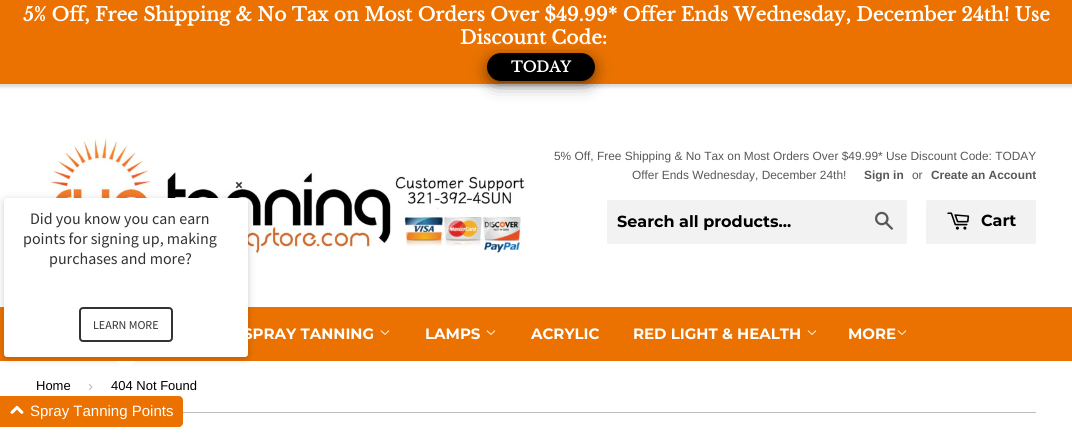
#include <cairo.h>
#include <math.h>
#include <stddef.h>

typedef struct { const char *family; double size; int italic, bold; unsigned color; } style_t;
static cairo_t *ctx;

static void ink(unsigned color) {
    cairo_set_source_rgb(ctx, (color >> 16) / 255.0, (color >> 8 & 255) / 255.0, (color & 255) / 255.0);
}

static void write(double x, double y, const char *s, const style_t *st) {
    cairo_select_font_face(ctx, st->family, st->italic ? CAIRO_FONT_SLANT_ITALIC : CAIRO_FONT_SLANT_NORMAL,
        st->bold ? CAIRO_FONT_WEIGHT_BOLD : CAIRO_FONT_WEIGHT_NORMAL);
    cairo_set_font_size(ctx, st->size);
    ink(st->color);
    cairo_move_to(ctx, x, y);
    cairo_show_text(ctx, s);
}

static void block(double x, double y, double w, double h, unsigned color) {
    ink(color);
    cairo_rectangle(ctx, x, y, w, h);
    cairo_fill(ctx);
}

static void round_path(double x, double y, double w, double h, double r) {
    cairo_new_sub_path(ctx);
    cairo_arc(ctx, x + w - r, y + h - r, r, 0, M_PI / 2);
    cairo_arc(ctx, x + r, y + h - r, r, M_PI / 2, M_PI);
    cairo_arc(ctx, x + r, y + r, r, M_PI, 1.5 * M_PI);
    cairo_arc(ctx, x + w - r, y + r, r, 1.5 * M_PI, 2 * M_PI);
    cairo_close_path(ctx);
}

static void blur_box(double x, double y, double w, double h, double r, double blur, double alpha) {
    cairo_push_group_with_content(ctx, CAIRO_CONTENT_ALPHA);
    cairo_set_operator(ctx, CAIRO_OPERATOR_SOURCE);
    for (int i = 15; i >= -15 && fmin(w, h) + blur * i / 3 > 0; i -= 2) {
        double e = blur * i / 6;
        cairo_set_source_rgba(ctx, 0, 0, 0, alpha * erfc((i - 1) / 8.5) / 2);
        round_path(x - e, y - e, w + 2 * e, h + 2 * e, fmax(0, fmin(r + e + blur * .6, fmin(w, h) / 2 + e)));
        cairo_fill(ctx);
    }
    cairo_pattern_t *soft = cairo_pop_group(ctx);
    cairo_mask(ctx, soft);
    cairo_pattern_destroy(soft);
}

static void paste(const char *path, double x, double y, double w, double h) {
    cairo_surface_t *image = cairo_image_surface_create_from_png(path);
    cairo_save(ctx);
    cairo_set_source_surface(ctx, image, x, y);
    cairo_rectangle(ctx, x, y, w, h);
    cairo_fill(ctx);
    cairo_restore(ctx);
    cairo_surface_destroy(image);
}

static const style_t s1 = {"Libre Baskerville", 18.67, 0, 1, 0xffffff};
static const style_t s2 = {"Libre Baskerville", 14.5, 0, 1, 0xffffff};
static const style_t s3 = {"Source Sans Pro", 15, 0, 1, 0x333333};
static const style_t s4 = {"Source Sans Pro", 16, 0, 0, 0x333333};
static const style_t s5 = {"Source Sans Pro", 12, 0, 0, 0x333333};
static const style_t s6 = {"Liberation Sans", 15, 0, 0, 0xffffff};
static const style_t s7 = {"Liberation Sans", 11.9, 0, 0, 0x585858};
static const style_t s8 = {"Liberation Sans", 11.9, 0, 1, 0x585858};
static const style_t s9 = {"Montserrat Thin", 16, 0, 0, 0x000000};
static const style_t s10 = {"Montserrat Thin", 15, 0, 0, 0xffffff};
static const style_t s11 = {"Liberation Sans", 13, 0, 0, 0x000000};
static const style_t s12 = {"Liberation Sans", 15, 0, 0, 0xbbbbbb};

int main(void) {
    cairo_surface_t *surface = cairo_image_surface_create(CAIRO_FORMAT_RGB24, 1072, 447);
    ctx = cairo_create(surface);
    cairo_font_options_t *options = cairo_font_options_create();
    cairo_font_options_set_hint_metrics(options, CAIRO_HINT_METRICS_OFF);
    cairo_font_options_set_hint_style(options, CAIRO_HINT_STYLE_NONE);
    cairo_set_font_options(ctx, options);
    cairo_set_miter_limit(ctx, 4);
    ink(0xffffff);
    cairo_paint(ctx);
    ink(0x000000);
    blur_box(-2, -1, 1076, 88, 0, 1.5, 0.15);
    block(0, 0, 1072, 84, 0xeb7200);
    write(23, 21, "5% Off, Free Shipping & No Tax on Most Orders Over $49.99* Offer Ends Wednesday, December 24th! Use", &s1);
    write(460, 44, "Discount Code:", &s1);
    ink(0x000000);
    blur_box(494, 64, 94, 14, 7, 10, 1);
    ink(0x000000);
    round_path(487, 53, 108, 28, 14);
    cairo_fill(ctx);
    write(511, 72, "TODAY", &s2);
    paste("pic2.png", 42, 137, 484, 118);
    write(235, 190, "×", &s3);
    block(0, 307, 1072, 54, 0xeb7200);
    ink(0x000000);
    blur_box(4, 200, 244, 159, 3, 4, 0.2);
    ink(0xffffff);
    round_path(4, 198, 244, 159, 3);
    cairo_fill(ctx);
    write(30, 224, "Did you know you can earn", &s4);
    write(23, 244, "points for signing up, making", &s4);
    write(49, 264, "purchases and more?", &s4);
    round_path(80, 308, 92, 33, 3);
    cairo_stroke(ctx);
    write(93, 329, "LEARN MORE", &s5);
    ink(0xffffff);
    cairo_new_path(ctx);
    cairo_move_to(ctx, 116, 361);
    cairo_line_to(ctx, 136, 361);
    cairo_line_to(ctx, 126, 371);
    cairo_close_path(ctx);
    cairo_fill(ctx);
    ink(0xeb7200);
    cairo_new_path(ctx);
    cairo_move_to(ctx, 0, 396);
    cairo_line_to(ctx, 179, 396);
    cairo_curve_to(ctx, 181, 396, 183, 398, 183, 400);
    cairo_line_to(ctx, 183, 423);
    cairo_curve_to(ctx, 183, 425, 181, 427, 179, 427);
    cairo_line_to(ctx, 0, 427);
    cairo_close_path(ctx);
    cairo_fill(ctx);
    paste("pic1.png", 10, 405, 14, 9);
    write(30, 416, "Spray Tanning Points", &s6);
    write(554, 160, "5% Off, Free Shipping & No Tax on Most Orders Over $49.99* Use Discount Code: TODAY", &s7);
    write(632, 179, "Offer Ends Wednesday, December 24th!", &s7);
    write(864, 179, "Sign in", &s8);
    write(912, 179, "or", &s7);
    write(931, 179, "Create an Account", &s8);
    ink(0xf2f2f2);
    round_path(607, 200, 300, 44, 2);
    cairo_fill(ctx);
    write(617, 227, "Search all products...", &s9);
    paste("pic3.png", 875, 211, 18, 19);
    ink(0xf2f2f2);
    round_path(926, 200, 110, 44, 2);
    cairo_fill(ctx);
    paste("pic4.png", 947, 212, 23, 18);
    write(981, 226, "Cart", &s9);
    write(243, 339, "SPRAY TANNING", &s10);
    paste("pic5.png", 380, 330, 10, 5);
    write(425, 339, "LAMPS", &s10);
    paste("pic5.png", 486, 330, 10, 5);
    write(531, 339, "ACRYLIC", &s10);
    write(633, 339, "RED LIGHT & HEALTH", &s10);
    paste("pic5.png", 807, 330, 10, 5);
    write(848, 339, "MORE", &s10);
    paste("pic5.png", 897, 330, 10, 5);
    block(183, 412, 853, 1, 0xbdbdbd);
    write(36, 390, "Home", &s11);
    write(88, 391, "›", &s12);
    write(111, 390, "404 Not Found", &s11);
    cairo_surface_write_to_png(surface, "screenshot.png");
    cairo_font_options_destroy(options);
    cairo_destroy(ctx);
    cairo_surface_destroy(surface);
    return 0;
}
